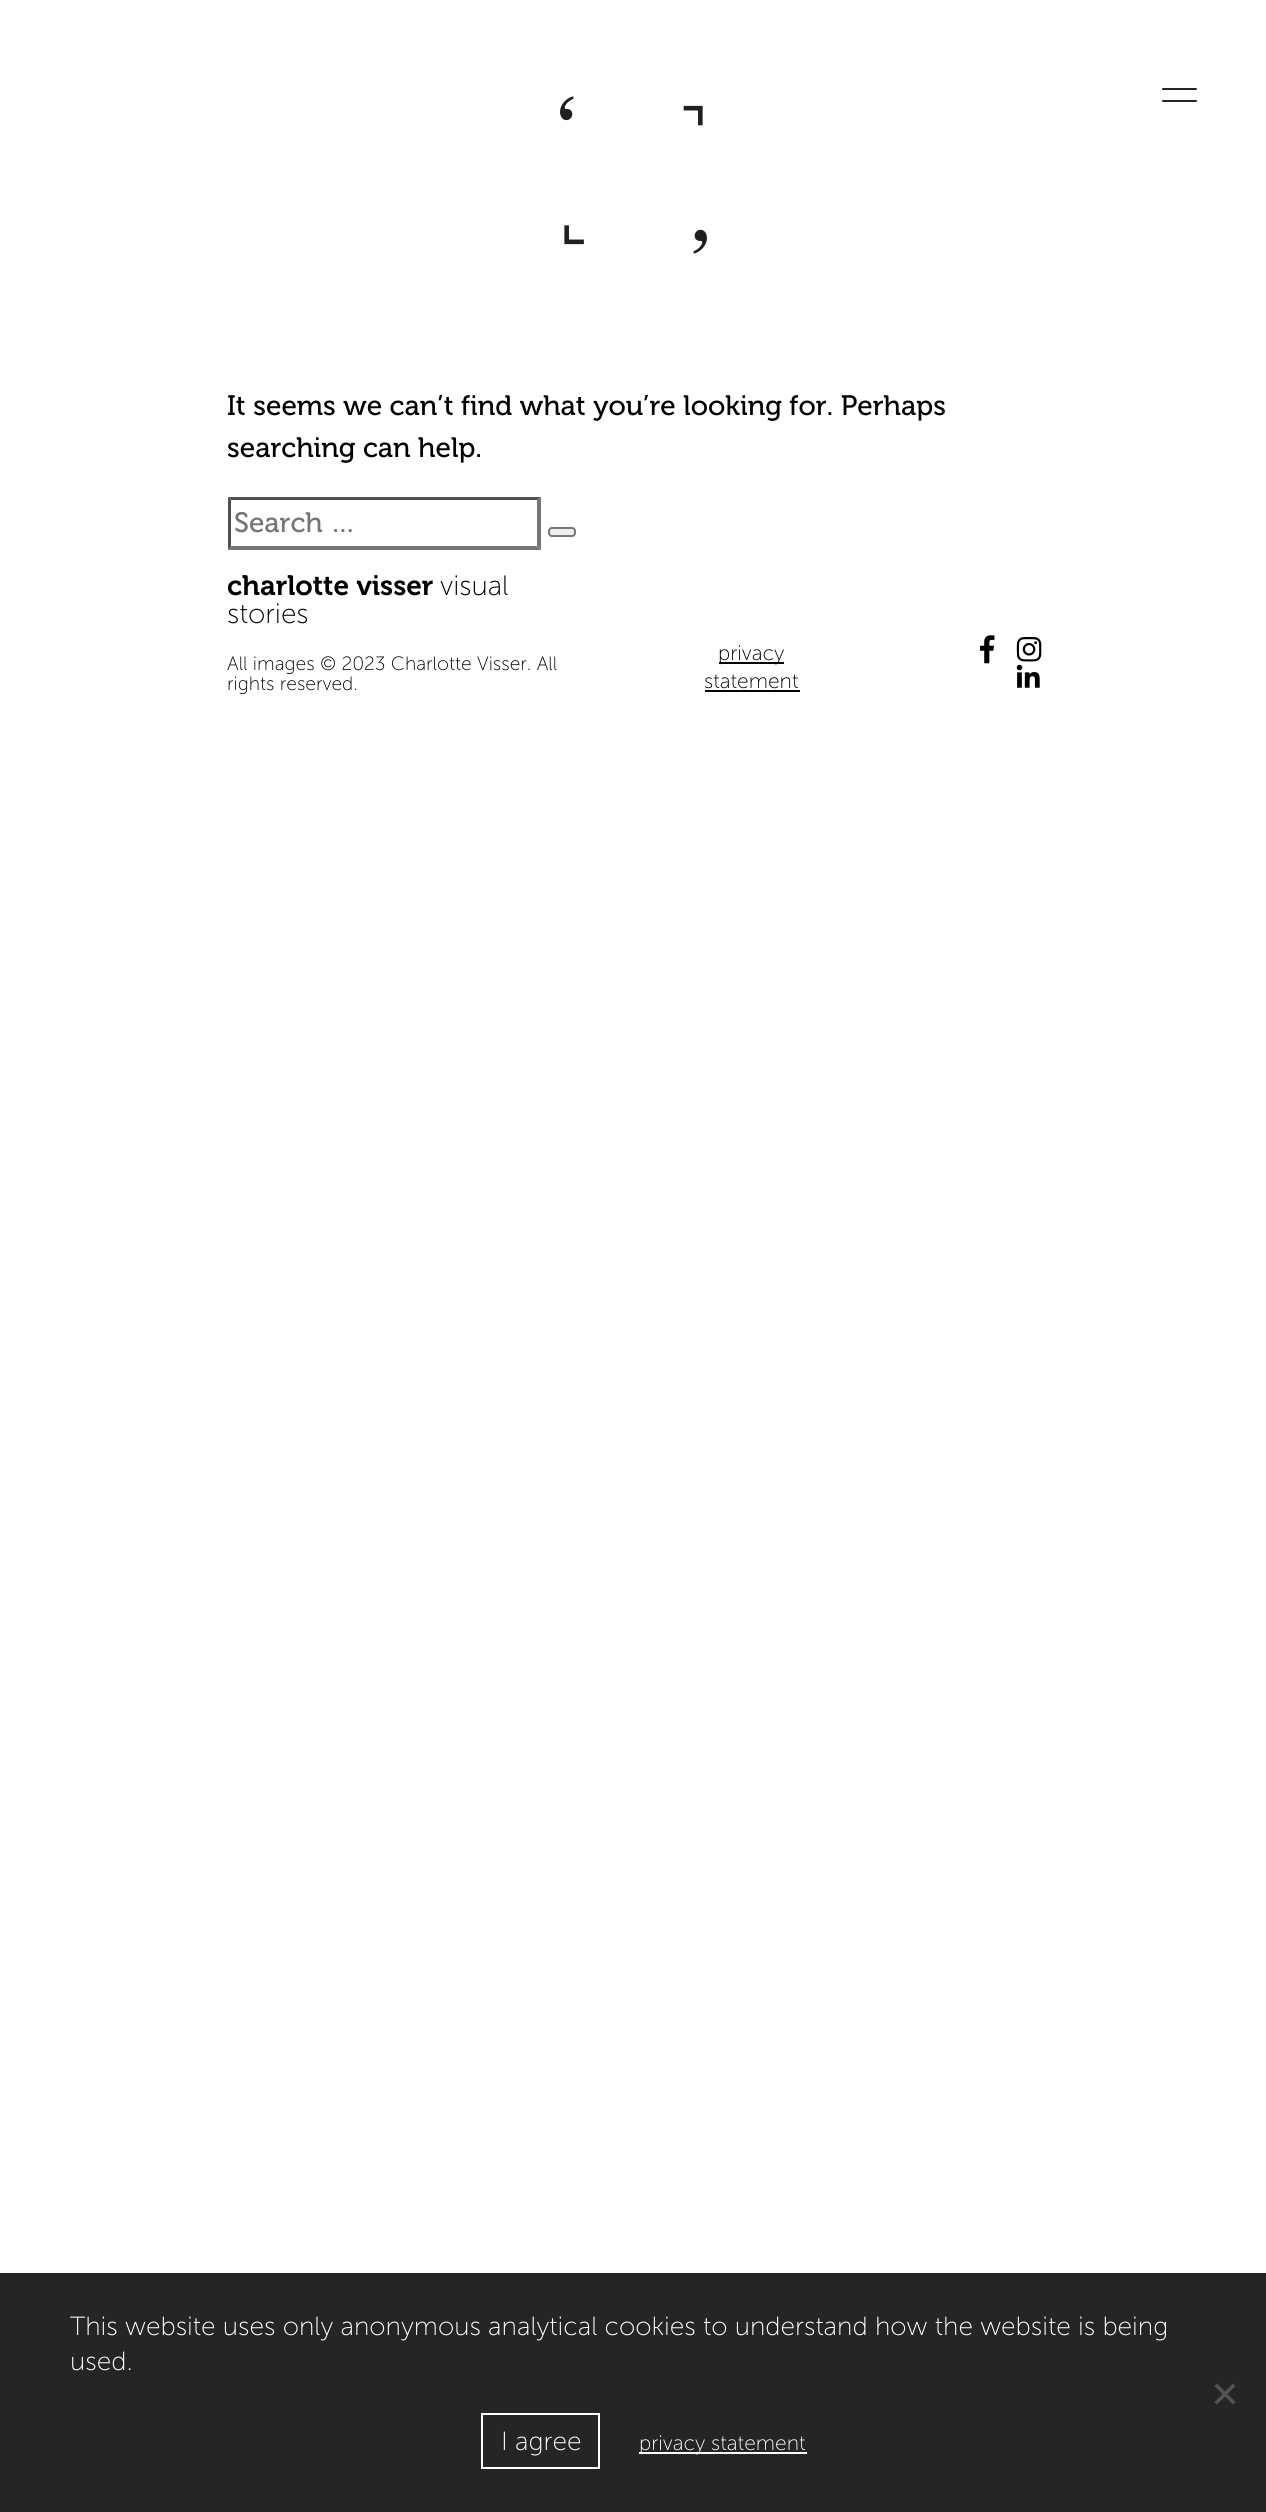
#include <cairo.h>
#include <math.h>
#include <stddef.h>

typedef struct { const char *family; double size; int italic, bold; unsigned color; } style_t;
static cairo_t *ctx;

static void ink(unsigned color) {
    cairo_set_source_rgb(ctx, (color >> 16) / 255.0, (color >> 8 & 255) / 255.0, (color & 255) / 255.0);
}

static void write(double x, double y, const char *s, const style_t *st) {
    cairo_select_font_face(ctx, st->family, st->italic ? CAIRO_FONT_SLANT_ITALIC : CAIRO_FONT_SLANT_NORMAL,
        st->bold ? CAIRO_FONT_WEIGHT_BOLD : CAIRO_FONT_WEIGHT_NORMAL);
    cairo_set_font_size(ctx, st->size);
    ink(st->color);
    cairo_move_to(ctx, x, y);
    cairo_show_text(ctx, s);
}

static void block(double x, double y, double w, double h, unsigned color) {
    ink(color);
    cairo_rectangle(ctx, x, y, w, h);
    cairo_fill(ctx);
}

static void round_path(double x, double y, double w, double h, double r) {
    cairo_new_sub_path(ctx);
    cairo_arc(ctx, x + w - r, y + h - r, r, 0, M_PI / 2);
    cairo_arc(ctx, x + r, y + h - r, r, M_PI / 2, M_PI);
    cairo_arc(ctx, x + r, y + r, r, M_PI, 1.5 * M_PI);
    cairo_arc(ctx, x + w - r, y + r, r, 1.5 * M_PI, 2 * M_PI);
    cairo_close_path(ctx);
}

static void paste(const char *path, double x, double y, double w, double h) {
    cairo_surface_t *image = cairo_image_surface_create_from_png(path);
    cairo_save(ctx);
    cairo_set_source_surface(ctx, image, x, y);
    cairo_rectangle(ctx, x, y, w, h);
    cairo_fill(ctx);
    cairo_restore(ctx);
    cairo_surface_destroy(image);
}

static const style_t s1 = {"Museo", 28, 0, 0, 0x000000};
static const style_t s2 = {"Museo", 28, 0, 0, 0x757575};
static const style_t s3 = {"Museo SemiBold", 28, 0, 0, 0x000000};
static const style_t s4 = {"Museo Sans ExtraLight", 28, 0, 0, 0x000000};
static const style_t s5 = {"Museo Sans ExtraLight", 19.25, 0, 0, 0x000000};
static const style_t s6 = {"Museo Sans ExtraLight", 21, 0, 0, 0x000000};
static const style_t s7 = {"Museo Sans ExtraLight", 26.25, 0, 0, 0xffffff};
static const style_t s8 = {"Museo Sans ExtraLight", 21, 0, 0, 0xffffff};

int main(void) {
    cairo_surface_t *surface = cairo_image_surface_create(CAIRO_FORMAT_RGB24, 1266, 2512);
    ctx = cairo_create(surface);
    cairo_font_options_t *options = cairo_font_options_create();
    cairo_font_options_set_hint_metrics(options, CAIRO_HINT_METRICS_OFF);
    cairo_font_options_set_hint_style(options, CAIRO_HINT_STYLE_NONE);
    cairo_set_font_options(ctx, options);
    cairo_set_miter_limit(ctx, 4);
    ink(0xffffff);
    cairo_paint(ctx);
    paste("pic1.png", 560, 96, 147, 158);
    ink(0x252525);
    round_path(1162, 88, 35, 2, 1);
    cairo_fill(ctx);
    round_path(1162, 100, 35, 2, 1);
    cairo_fill(ctx);
    write(227, 415, "It seems we can’t find what you’re looking for. Perhaps", &s1);
    write(227, 457, "searching can help.", &s1);
    ink(0x4f4f4f);
    cairo_new_path(ctx);
    cairo_move_to(ctx, 228, 497);
    cairo_line_to(ctx, 541, 497);
    cairo_line_to(ctx, 537, 500);
    cairo_line_to(ctx, 231, 500);
    cairo_close_path(ctx);
    cairo_fill(ctx);
    ink(0x767676);
    cairo_new_path(ctx);
    cairo_move_to(ctx, 541, 497);
    cairo_line_to(ctx, 541, 550);
    cairo_line_to(ctx, 537, 546);
    cairo_line_to(ctx, 537, 500);
    cairo_close_path(ctx);
    cairo_fill(ctx);
    cairo_new_path(ctx);
    cairo_move_to(ctx, 541, 550);
    cairo_line_to(ctx, 228, 550);
    cairo_line_to(ctx, 231, 546);
    cairo_line_to(ctx, 537, 546);
    cairo_close_path(ctx);
    cairo_fill(ctx);
    ink(0x4f4f4f);
    cairo_new_path(ctx);
    cairo_move_to(ctx, 228, 550);
    cairo_line_to(ctx, 228, 497);
    cairo_line_to(ctx, 231, 500);
    cairo_line_to(ctx, 231, 546);
    cairo_close_path(ctx);
    cairo_fill(ctx);
    write(234, 532, "Search …", &s2);
    ink(0xefefef);
    round_path(549, 528, 26, 8, 3);
    cairo_fill_preserve(ctx);
    ink(0x767676);
    cairo_stroke(ctx);
    write(227, 595, "charlotte visser", &s3);
    write(440, 595, "visual", &s4);
    write(227, 623, "stories", &s4);
    write(227, 670, "All images © 2023 Charlotte Visser. All", &s5);
    write(227, 690, "rights reserved.", &s5);
    block(719, 662, 65, 2, 0x000000);
    write(718, 660, "privacy", &s6);
    write(704, 688, "statement", &s6);
    block(705, 690, 95, 2, 0x000000);
    paste("pic2.png", 980, 635, 15, 29);
    paste("pic3.png", 1016, 637, 26, 25);
    paste("pic4.png", 1016, 664, 24, 24);
    block(0, 2273, 1266, 239, 0x252525);
    write(70, 2335, "This website uses only anonymous analytical cookies to understand how the website is being", &s7);
    write(70, 2370, "used.", &s7);
    ink(0x535353);
    cairo_new_path(ctx);
    cairo_move_to(ctx, 1233, 2383.5);
    cairo_line_to(ctx, 1235.5, 2386);
    cairo_line_to(ctx, 1217, 2404.5);
    cairo_line_to(ctx, 1214.5, 2402);
    cairo_close_path(ctx);
    cairo_fill(ctx);
    cairo_new_path(ctx);
    cairo_move_to(ctx, 1214.5, 2386);
    cairo_line_to(ctx, 1217, 2383.5);
    cairo_line_to(ctx, 1235.5, 2402);
    cairo_line_to(ctx, 1233, 2404.5);
    cairo_close_path(ctx);
    cairo_fill(ctx);
    cairo_rectangle(ctx, 482, 2414, 117, 54);
    ink(0xffffff);
    cairo_stroke(ctx);
    write(501, 2450, "I agree", &s7);
    block(639, 2452, 168, 2, 0xffffff);
    write(639, 2450, "privacy statement", &s8);
    cairo_surface_write_to_png(surface, "screenshot.png");
    cairo_font_options_destroy(options);
    cairo_destroy(ctx);
    cairo_surface_destroy(surface);
    return 0;
}
